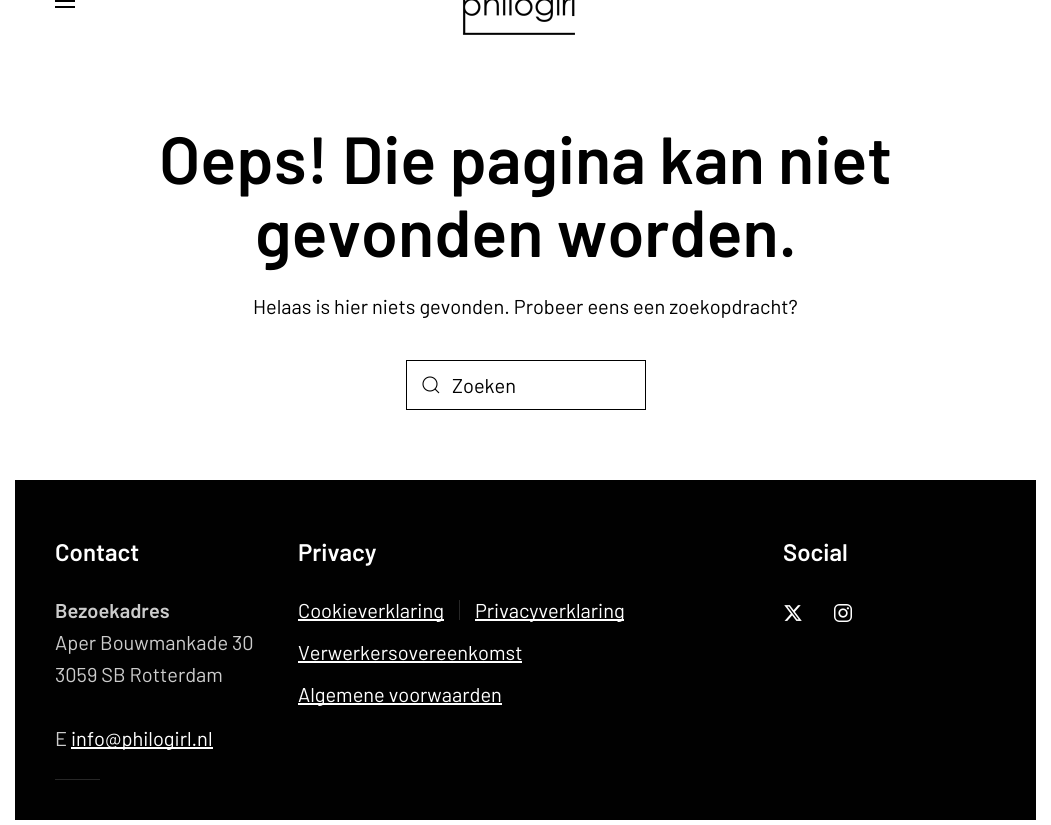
#include <cairo.h>
#include <math.h>
#include <stddef.h>

typedef struct { const char *family; double size; int italic, bold; unsigned color; } style_t;
static cairo_t *ctx;

static void ink(unsigned color) {
    cairo_set_source_rgb(ctx, (color >> 16) / 255.0, (color >> 8 & 255) / 255.0, (color & 255) / 255.0);
}

static void write(double x, double y, const char *s, const style_t *st) {
    cairo_select_font_face(ctx, st->family, st->italic ? CAIRO_FONT_SLANT_ITALIC : CAIRO_FONT_SLANT_NORMAL,
        st->bold ? CAIRO_FONT_WEIGHT_BOLD : CAIRO_FONT_WEIGHT_NORMAL);
    cairo_set_font_size(ctx, st->size);
    ink(st->color);
    cairo_move_to(ctx, x, y);
    cairo_show_text(ctx, s);
}

static void block(double x, double y, double w, double h, unsigned color) {
    ink(color);
    cairo_rectangle(ctx, x, y, w, h);
    cairo_fill(ctx);
}

static void paste(const char *path, double x, double y, double w, double h) {
    cairo_surface_t *image = cairo_image_surface_create_from_png(path);
    cairo_save(ctx);
    cairo_set_source_surface(ctx, image, x, y);
    cairo_rectangle(ctx, x, y, w, h);
    cairo_fill(ctx);
    cairo_restore(ctx);
    cairo_surface_destroy(image);
}

static const style_t s1 = {"Barlow SemiBold", 66.5, 0, 0, 0x000000};
static const style_t s2 = {"Barlow", 20, 0, 0, 0x000000};
static const style_t s3 = {"Barlow SemiBold", 24, 0, 0, 0xffffff};
static const style_t s4 = {"Barlow SemiBold", 20, 0, 0, 0xcccccc};
static const style_t s5 = {"Barlow", 20, 0, 0, 0xcccccc};
static const style_t s6 = {"Barlow", 20, 0, 0, 0xffffff};

int main(void) {
    cairo_surface_t *surface = cairo_image_surface_create(CAIRO_FORMAT_RGB24, 1051, 825);
    ctx = cairo_create(surface);
    cairo_font_options_t *options = cairo_font_options_create();
    cairo_font_options_set_hint_metrics(options, CAIRO_HINT_METRICS_OFF);
    cairo_font_options_set_hint_style(options, CAIRO_HINT_STYLE_NONE);
    cairo_set_font_options(ctx, options);
    cairo_set_miter_limit(ctx, 4);
    ink(0xffffff);
    cairo_paint(ctx);
    block(55, 0, 20, 2, 0x000000);
    block(55, 6, 20, 2, 0x000000);
    paste("pic1.png", 462, 0, 113, 35);
    write(159, 184, "Oeps! Die pagina kan niet", &s1);
    write(255, 257, "gevonden worden.", &s1);
    write(253, 314, "Helaas is hier niets gevonden. Probeer eens een zoekopdracht?", &s2);
    cairo_rectangle(ctx, 406.5, 360.5, 239, 49);
    cairo_set_line_width(ctx, 1);
    cairo_stroke(ctx);
    cairo_arc(ctx, 430, 384, 7, 0, 2 * M_PI);
    cairo_set_line_width(ctx, 1.1);
    cairo_stroke(ctx);
    cairo_new_path(ctx);
    cairo_move_to(ctx, 435, 389);
    cairo_line_to(ctx, 439, 393);
    cairo_close_path(ctx);
    cairo_stroke(ctx);
    write(452, 393, "Zoeken", &s2);
    block(15, 480, 1021, 340, 0x010101);
    write(55, 561, "Contact", &s3);
    write(55, 618, "Bezoekadres", &s4);
    write(55, 650, "Aper Bouwmankade 30", &s5);
    write(55, 682, "3059 SB Rotterdam", &s5);
    write(55, 746, "E", &s5);
    block(71, 747, 142, 2, 0xffffff);
    write(71, 746, "info@philogirl.nl", &s6);
    block(55, 779, 45, 1, 0x272727);
    write(298, 561, "Privacy", &s3);
    block(298, 619, 146, 2, 0xffffff);
    write(298, 618, "Cookieverklaring", &s6);
    block(459, 600, 1, 20, 0x272727);
    block(475, 619, 149, 2, 0xffffff);
    write(475, 618, "Privacyverklaring", &s6);
    write(298, 660, "Verwerkersovereenkomst", &s6);
    block(298, 661, 224, 2, 0xffffff);
    block(298, 703, 204, 2, 0xffffff);
    write(298, 702, "Algemene voorwaarden", &s6);
    write(783, 561, "Social", &s3);
    paste("pic2.png", 784, 605, 18, 16);
    paste("pic3.png", 834, 604, 18, 18);
    cairo_surface_write_to_png(surface, "screenshot.png");
    cairo_font_options_destroy(options);
    cairo_destroy(ctx);
    cairo_surface_destroy(surface);
    return 0;
}
